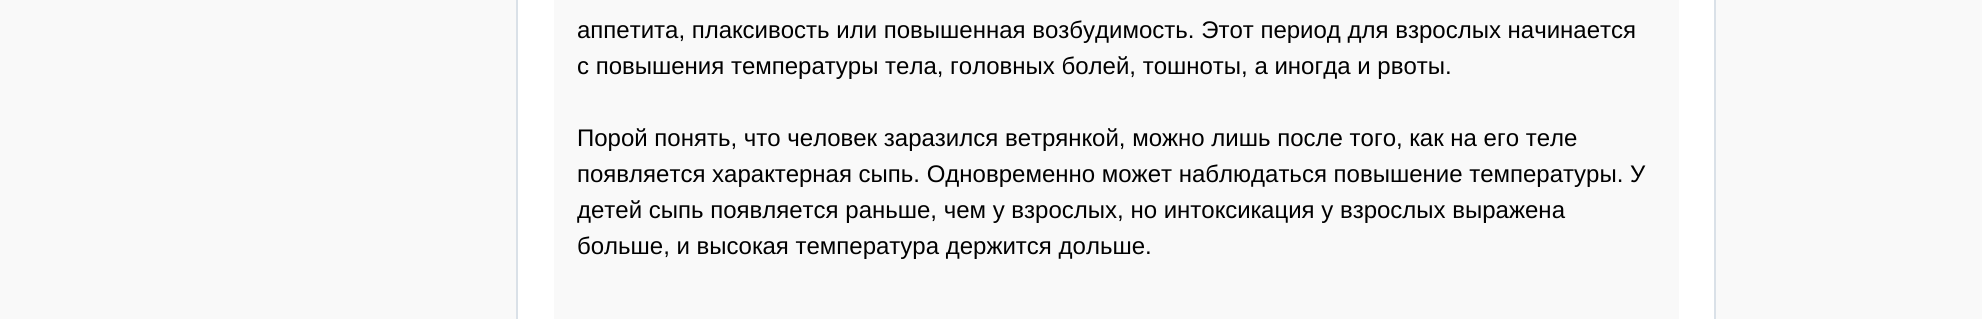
#include <cairo.h>
#include <math.h>
#include <stddef.h>

typedef struct { const char *family; double size; int italic, bold; unsigned color; } style_t;
static cairo_t *ctx;

static void ink(unsigned color) {
    cairo_set_source_rgb(ctx, (color >> 16) / 255.0, (color >> 8 & 255) / 255.0, (color & 255) / 255.0);
}

static void write(double x, double y, const char *s, const style_t *st) {
    cairo_select_font_face(ctx, st->family, st->italic ? CAIRO_FONT_SLANT_ITALIC : CAIRO_FONT_SLANT_NORMAL,
        st->bold ? CAIRO_FONT_WEIGHT_BOLD : CAIRO_FONT_WEIGHT_NORMAL);
    cairo_set_font_size(ctx, st->size);
    ink(st->color);
    cairo_move_to(ctx, x, y);
    cairo_show_text(ctx, s);
}

static void block(double x, double y, double w, double h, unsigned color) {
    ink(color);
    cairo_rectangle(ctx, x, y, w, h);
    cairo_fill(ctx);
}

static const style_t s1 = {"Liberation Sans", 24, 0, 0, 0x000000};

int main(void) {
    cairo_surface_t *surface = cairo_image_surface_create(CAIRO_FORMAT_RGB24, 1982, 319);
    ctx = cairo_create(surface);
    cairo_font_options_t *options = cairo_font_options_create();
    cairo_font_options_set_hint_metrics(options, CAIRO_HINT_METRICS_OFF);
    cairo_font_options_set_hint_style(options, CAIRO_HINT_STYLE_NONE);
    cairo_set_font_options(ctx, options);
    cairo_set_miter_limit(ctx, 4);
    ink(0xf9f9f9);
    cairo_paint(ctx);
    ink(0xffffff);
    cairo_rectangle(ctx, 517, -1, 1198, 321);
    cairo_fill_preserve(ctx);
    ink(0xdae1e8);
    cairo_stroke(ctx);
    block(554, 0, 1125, 319, 0xf9f9f9);
    write(577, 38, "аппетита, плаксивость или повышенная возбудимость. Этот период для взрослых начинается", &s1);
    write(577, 74, "с повышения температуры тела, головных болей, тошноты, а иногда и рвоты.", &s1);
    write(577, 146, "Порой понять, что человек заразился ветрянкой, можно лишь после того, как на его теле", &s1);
    write(577, 182, "появляется характерная сыпь. Одновременно может наблюдаться повышение температуры. У", &s1);
    write(577, 218, "детей сыпь появляется раньше, чем у взрослых, но интоксикация у взрослых выражена", &s1);
    write(577, 254, "больше, и высокая температура держится дольше.", &s1);
    cairo_surface_write_to_png(surface, "screenshot.png");
    cairo_font_options_destroy(options);
    cairo_destroy(ctx);
    cairo_surface_destroy(surface);
    return 0;
}
